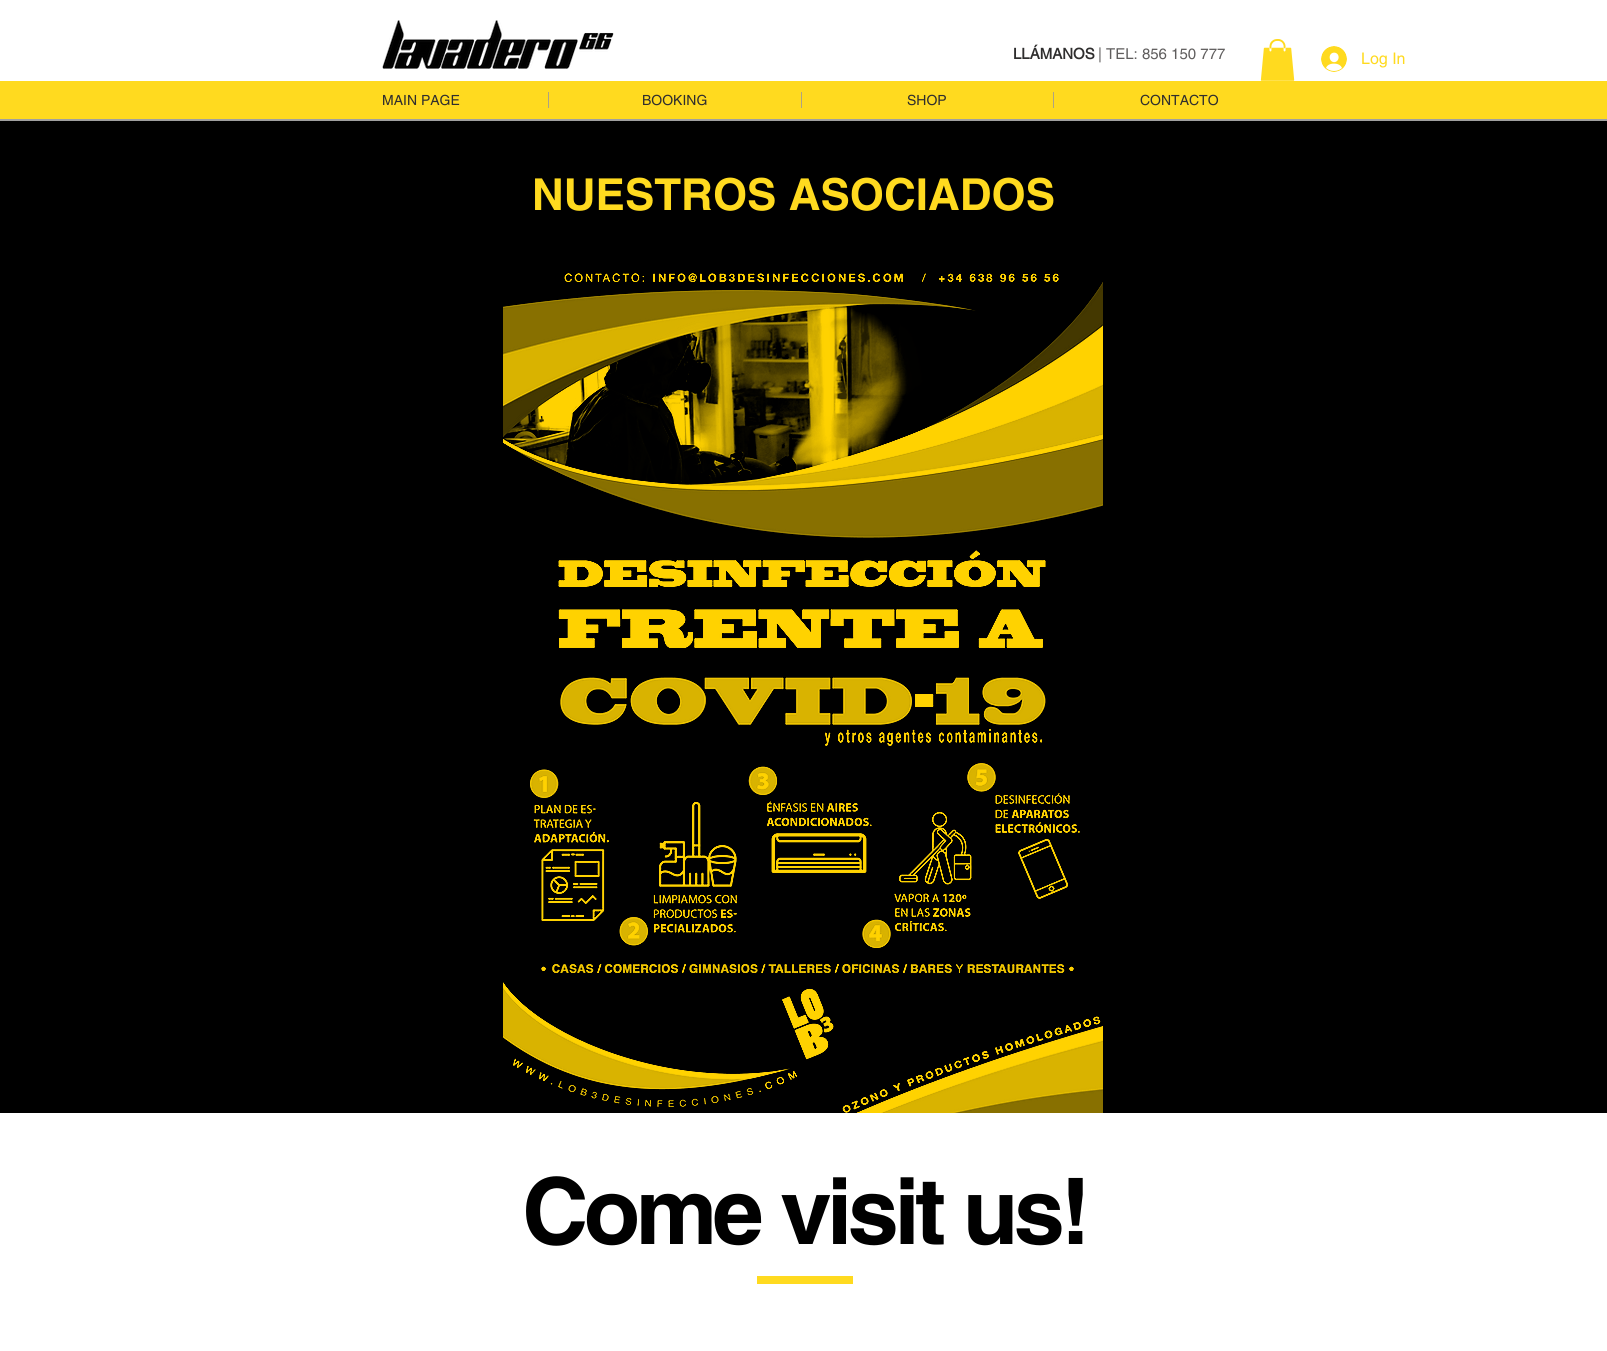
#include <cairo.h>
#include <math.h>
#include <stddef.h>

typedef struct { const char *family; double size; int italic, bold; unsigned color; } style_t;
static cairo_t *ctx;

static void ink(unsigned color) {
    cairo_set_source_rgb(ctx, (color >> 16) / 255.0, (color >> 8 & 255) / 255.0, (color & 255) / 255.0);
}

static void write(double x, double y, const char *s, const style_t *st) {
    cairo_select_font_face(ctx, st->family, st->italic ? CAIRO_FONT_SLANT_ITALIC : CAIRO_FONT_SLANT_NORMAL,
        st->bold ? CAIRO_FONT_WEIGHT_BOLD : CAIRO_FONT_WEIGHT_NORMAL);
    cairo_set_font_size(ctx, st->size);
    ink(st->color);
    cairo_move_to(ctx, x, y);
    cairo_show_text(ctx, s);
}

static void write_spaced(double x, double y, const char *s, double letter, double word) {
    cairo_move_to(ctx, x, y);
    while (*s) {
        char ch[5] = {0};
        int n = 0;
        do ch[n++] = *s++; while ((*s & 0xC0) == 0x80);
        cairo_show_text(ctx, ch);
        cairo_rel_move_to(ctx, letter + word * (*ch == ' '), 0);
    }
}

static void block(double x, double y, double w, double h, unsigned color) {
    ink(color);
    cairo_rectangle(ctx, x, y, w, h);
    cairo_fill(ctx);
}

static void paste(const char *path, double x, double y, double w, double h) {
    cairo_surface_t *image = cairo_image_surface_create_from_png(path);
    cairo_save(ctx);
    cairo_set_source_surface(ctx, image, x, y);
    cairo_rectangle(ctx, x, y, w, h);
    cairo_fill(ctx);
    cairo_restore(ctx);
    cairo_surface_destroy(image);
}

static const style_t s1 = {"helvetica", 15, 0, 1, 0x2f2e2e};
static const style_t s2 = {"helvetica", 15, 0, 0, 0x605e5e};
static const style_t s3 = {"helvetica", 16, 0, 0, 0xffda1f};
static const style_t s4 = {"helvetica", 14, 0, 0, 0x2f2e2e};
static const style_t s5 = {"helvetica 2", 44, 0, 1, 0xffda1f};

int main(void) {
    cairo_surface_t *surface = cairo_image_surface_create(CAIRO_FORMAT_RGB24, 1607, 1351);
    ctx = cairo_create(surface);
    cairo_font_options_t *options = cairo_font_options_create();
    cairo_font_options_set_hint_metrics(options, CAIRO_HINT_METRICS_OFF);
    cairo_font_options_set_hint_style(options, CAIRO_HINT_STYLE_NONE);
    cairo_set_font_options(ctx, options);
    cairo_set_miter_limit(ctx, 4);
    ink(0x000000);
    cairo_paint(ctx);
    block(0, 0, 1607, 81, 0xffffff);
    block(0, 119, 1607, 2, 0xa0a09f);
    paste("pic1.png", 382, 20, 232, 49);
    write(1013, 59, "LLÁMANOS", &s1);
    write(1098, 59, "| TEL: 856 150 777", &s2);
    paste("pic2.png", 1260, 39, 35, 42);
    paste("pic3.png", 1321, 46, 26, 26);
    write(1361, 64, "Log In", &s3);
    block(0, 81, 1607, 38, 0xffda1f);
    write(382, 105, "MAIN PAGE", &s4);
    block(548, 92, 1, 16, 0xada284);
    write(642, 105, "BOOKING", &s4);
    block(801, 92, 1, 16, 0xada284);
    write(907, 105, "SHOP", &s4);
    block(1053, 92, 1, 16, 0xada284);
    write(1140, 105, "CONTACTO", &s4);
    write(532, 210, "NUESTROS ASOCIADOS", &s5);
    paste("pic4.png", 503, 273, 600, 840);
    block(0, 1113, 1607, 238, 0xffffff);
    cairo_set_font_size(ctx, 92);
    ink(0x000000);
    write_spaced(522, 1244, "Come visit us!", -4.6, 0);
    block(757, 1276, 96, 8, 0xffda1f);
    cairo_surface_write_to_png(surface, "screenshot.png");
    cairo_font_options_destroy(options);
    cairo_destroy(ctx);
    cairo_surface_destroy(surface);
    return 0;
}
